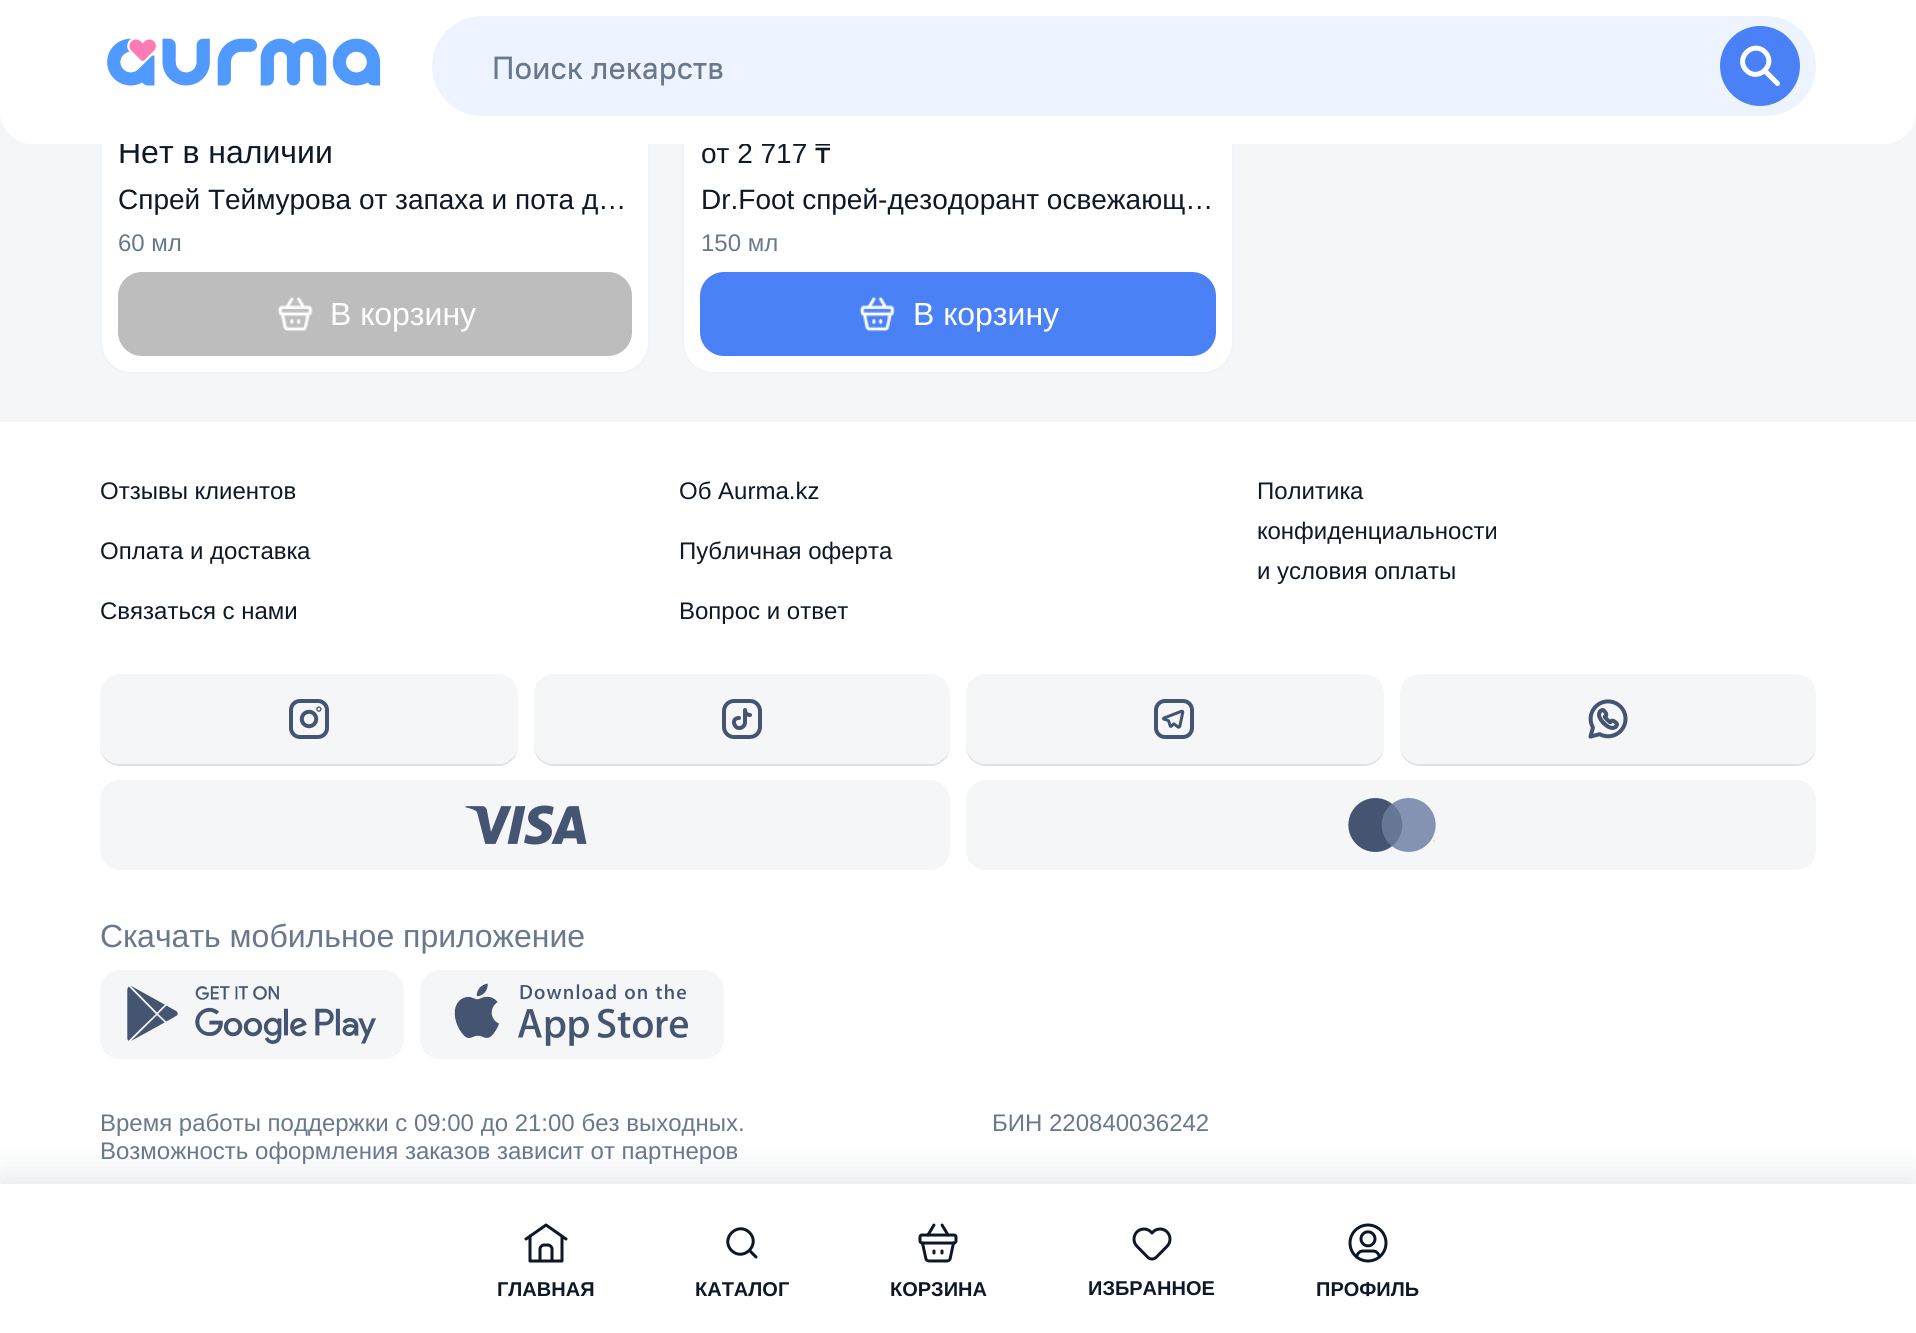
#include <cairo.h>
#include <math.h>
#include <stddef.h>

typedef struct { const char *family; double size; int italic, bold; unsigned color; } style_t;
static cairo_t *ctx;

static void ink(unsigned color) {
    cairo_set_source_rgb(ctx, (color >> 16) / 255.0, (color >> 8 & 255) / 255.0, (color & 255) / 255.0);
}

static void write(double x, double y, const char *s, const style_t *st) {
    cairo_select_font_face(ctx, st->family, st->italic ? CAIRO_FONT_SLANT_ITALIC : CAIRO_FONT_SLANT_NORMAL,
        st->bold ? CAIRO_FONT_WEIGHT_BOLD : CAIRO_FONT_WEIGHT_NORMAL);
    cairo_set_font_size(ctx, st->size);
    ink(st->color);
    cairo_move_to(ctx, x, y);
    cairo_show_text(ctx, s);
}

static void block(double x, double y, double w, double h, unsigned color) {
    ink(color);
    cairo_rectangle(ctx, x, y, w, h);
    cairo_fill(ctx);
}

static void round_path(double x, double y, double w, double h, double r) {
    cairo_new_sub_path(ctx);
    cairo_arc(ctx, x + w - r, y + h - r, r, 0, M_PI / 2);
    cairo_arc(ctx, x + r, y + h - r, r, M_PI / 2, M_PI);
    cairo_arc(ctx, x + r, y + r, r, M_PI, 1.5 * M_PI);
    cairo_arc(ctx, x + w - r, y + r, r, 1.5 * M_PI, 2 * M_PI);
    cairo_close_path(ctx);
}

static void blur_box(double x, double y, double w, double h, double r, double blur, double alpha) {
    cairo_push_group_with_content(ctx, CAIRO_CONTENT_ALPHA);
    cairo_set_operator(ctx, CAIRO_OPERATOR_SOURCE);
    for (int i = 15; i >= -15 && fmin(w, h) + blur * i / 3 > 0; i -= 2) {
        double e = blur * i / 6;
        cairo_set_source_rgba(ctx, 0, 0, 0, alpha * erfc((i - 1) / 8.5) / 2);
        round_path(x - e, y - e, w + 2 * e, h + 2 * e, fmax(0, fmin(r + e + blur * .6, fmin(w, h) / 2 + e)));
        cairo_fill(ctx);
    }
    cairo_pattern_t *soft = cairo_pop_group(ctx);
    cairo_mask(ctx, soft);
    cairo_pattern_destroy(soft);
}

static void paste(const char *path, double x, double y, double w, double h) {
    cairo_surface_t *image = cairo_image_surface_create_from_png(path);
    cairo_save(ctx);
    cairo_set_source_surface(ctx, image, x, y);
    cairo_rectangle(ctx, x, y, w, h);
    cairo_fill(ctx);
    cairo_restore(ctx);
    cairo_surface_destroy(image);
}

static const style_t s1 = {"Liberation Sans", 32, 0, 0, 0x0e1827};
static const style_t s2 = {"Liberation Sans", 28, 0, 0, 0x0e1827};
static const style_t s3 = {"Noto Sans Medium", 28, 0, 0, 0x0e1827};
static const style_t s4 = {"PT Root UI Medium", 32, 0, 0, 0x6a788e};
static const style_t s5 = {"Liberation Sans", 24, 0, 0, 0x6a788e};
static const style_t s6 = {"Liberation Sans", 32, 0, 0, 0xffffff};
static const style_t s7 = {"Liberation Sans", 24, 0, 0, 0x0e1827};
static const style_t s8 = {"Liberation Sans", 32, 0, 0, 0x6a788e};
static const style_t s9 = {"Liberation Sans", 20, 0, 1, 0x0e1827};

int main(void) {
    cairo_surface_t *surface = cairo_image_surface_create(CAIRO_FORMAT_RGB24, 1916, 1333);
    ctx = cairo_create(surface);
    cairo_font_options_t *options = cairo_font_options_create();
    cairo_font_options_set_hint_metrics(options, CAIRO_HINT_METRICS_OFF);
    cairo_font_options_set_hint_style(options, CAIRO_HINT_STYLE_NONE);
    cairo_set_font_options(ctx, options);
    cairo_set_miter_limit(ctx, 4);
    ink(0xffffff);
    cairo_paint(ctx);
    block(0, 112, 1916, 310, 0xf4f6f8);
    ink(0xffffff);
    round_path(101, -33, 548, 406, 31);
    cairo_fill_preserve(ctx);
    ink(0xf0f4fa);
    cairo_stroke(ctx);
    write(118, 163, "Нет в наличии", &s1);
    ink(0xffffff);
    round_path(683, -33, 550, 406, 31);
    cairo_fill_preserve(ctx);
    ink(0xf0f4fa);
    cairo_stroke(ctx);
    write(701, 163, "от 2 717", &s2);
    write(815, 163, "₸", &s3);
    ink(0xffffff);
    cairo_new_path(ctx);
    cairo_move_to(ctx, 0, -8);
    cairo_line_to(ctx, 1916, -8);
    cairo_line_to(ctx, 1916, 112);
    cairo_curve_to(ctx, 1916, 129.5, 1901.5, 144, 1884, 144);
    cairo_line_to(ctx, 32, 144);
    cairo_curve_to(ctx, 14.5, 144, 0, 129.5, 0, 112);
    cairo_close_path(ctx);
    cairo_fill(ctx);
    paste("pic1.png", 107, 38, 274, 48);
    ink(0xedf3ff);
    round_path(432, 16, 1384, 100, 50);
    cairo_fill(ctx);
    write(492, 79, "Поиск лекарств", &s4);
    ink(0x4a81f6);
    cairo_new_path(ctx);
    cairo_arc(ctx, 1760, 66, 40, 0, 2 * M_PI);
    cairo_fill(ctx);
    cairo_new_path(ctx);
    cairo_move_to(ctx, 1765, 52);
    cairo_curve_to(ctx, 1777, 64, 1758.5, 82.5, 1746.5, 70.5);
    cairo_curve_to(ctx, 1734.5, 58.5, 1752.5, 40, 1765, 52);
    cairo_move_to(ctx, 1764.5, 70.5);
    cairo_line_to(ctx, 1777.5, 83.5);
    ink(0xffffff);
    cairo_set_line_width(ctx, 5);
    cairo_set_line_cap(ctx, CAIRO_LINE_CAP_ROUND);
    cairo_set_line_join(ctx, CAIRO_LINE_JOIN_ROUND);
    cairo_stroke(ctx);
    write(118, 209, "Спрей Теймурова от запаха и пота д…", &s2);
    write(118, 251, "60 мл", &s5);
    ink(0xbdbdbd);
    round_path(118, 272, 514, 84, 24);
    cairo_fill(ctx);
    paste("pic2.png", 277, 297, 36, 35);
    write(330, 325, "В корзину", &s6);
    write(701, 209, "Dr.Foot спрей-дезодорант освежающ…", &s2);
    write(701, 251, "150 мл", &s5);
    ink(0x4a81f6);
    round_path(700, 272, 516, 84, 24);
    cairo_fill(ctx);
    paste("pic3.png", 859, 296, 36, 36);
    write(913, 325, "В корзину", &s6);
    write(100, 499, "Отзывы клиентов", &s7);
    write(679, 499, "Об Aurma.kz", &s7);
    write(1257, 499, "Политика", &s7);
    write(1257, 539, "конфиденциальности", &s7);
    write(1257, 579, "и условия оплаты", &s7);
    write(100, 559, "Оплата и доставка", &s7);
    write(679, 559, "Публичная оферта", &s7);
    write(100, 619, "Связаться с нами", &s7);
    write(679, 619, "Вопрос и ответ", &s7);
    ink(0xe0e0e0);
    cairo_new_path(ctx);
    cairo_move_to(ctx, 100, 744);
    cairo_line_to(ctx, 100, 746);
    cairo_curve_to(ctx, 100, 757, 109, 766, 120, 766);
    cairo_line_to(ctx, 498, 766);
    cairo_curve_to(ctx, 509, 766, 518, 757, 518, 746);
    cairo_line_to(ctx, 518, 744);
    cairo_curve_to(ctx, 518, 755, 509, 764, 498, 764);
    cairo_line_to(ctx, 120, 764);
    cairo_curve_to(ctx, 109, 764, 100, 755, 100, 744);
    cairo_close_path(ctx);
    cairo_fill(ctx);
    ink(0xf4f6f8);
    round_path(100, 674, 418, 90, 20);
    cairo_fill(ctx);
    paste("pic4.png", 289, 699, 40, 40);
    ink(0xe0e0e0);
    cairo_new_path(ctx);
    cairo_move_to(ctx, 534, 744);
    cairo_line_to(ctx, 534, 746);
    cairo_curve_to(ctx, 534, 757, 543, 766, 554, 766);
    cairo_line_to(ctx, 930, 766);
    cairo_curve_to(ctx, 941, 766, 950, 757, 950, 746);
    cairo_line_to(ctx, 950, 744);
    cairo_curve_to(ctx, 950, 755, 941, 764, 930, 764);
    cairo_line_to(ctx, 554, 764);
    cairo_curve_to(ctx, 543, 764, 534, 755, 534, 744);
    cairo_close_path(ctx);
    cairo_fill(ctx);
    ink(0xf4f6f8);
    round_path(534, 674, 416, 90, 20);
    cairo_fill(ctx);
    round_path(724, 701, 36, 36, 10);
    ink(0x445471);
    cairo_set_line_width(ctx, 4);
    cairo_set_line_cap(ctx, CAIRO_LINE_CAP_BUTT);
    cairo_set_line_join(ctx, CAIRO_LINE_JOIN_MITER);
    cairo_stroke(ctx);
    cairo_new_path(ctx);
    cairo_move_to(ctx, 739, 718);
    cairo_curve_to(ctx, 729.5, 718, 735, 732, 742.5, 727);
    cairo_curve_to(ctx, 744, 726, 745, 724.5, 745, 722.5);
    cairo_line_to(ctx, 745, 710);
    cairo_move_to(ctx, 745, 710);
    cairo_curve_to(ctx, 745, 713, 747, 715, 750, 715);
    cairo_set_line_cap(ctx, CAIRO_LINE_CAP_ROUND);
    cairo_set_line_join(ctx, CAIRO_LINE_JOIN_ROUND);
    cairo_stroke(ctx);
    ink(0xe0e0e0);
    cairo_new_path(ctx);
    cairo_move_to(ctx, 966, 744);
    cairo_line_to(ctx, 966, 746);
    cairo_curve_to(ctx, 966, 757, 975, 766, 986, 766);
    cairo_line_to(ctx, 1364, 766);
    cairo_curve_to(ctx, 1375, 766, 1384, 757, 1384, 746);
    cairo_line_to(ctx, 1384, 744);
    cairo_curve_to(ctx, 1384, 755, 1375, 764, 1364, 764);
    cairo_line_to(ctx, 986, 764);
    cairo_curve_to(ctx, 975, 764, 966, 755, 966, 744);
    cairo_close_path(ctx);
    cairo_fill(ctx);
    ink(0xf4f6f8);
    round_path(966, 674, 418, 90, 20);
    cairo_fill(ctx);
    paste("pic5.png", 1154, 699, 40, 40);
    ink(0xe0e0e0);
    cairo_new_path(ctx);
    cairo_move_to(ctx, 1400, 744);
    cairo_line_to(ctx, 1400, 746);
    cairo_curve_to(ctx, 1400, 757, 1409, 766, 1420, 766);
    cairo_line_to(ctx, 1796, 766);
    cairo_curve_to(ctx, 1807, 766, 1816, 757, 1816, 746);
    cairo_line_to(ctx, 1816, 744);
    cairo_curve_to(ctx, 1816, 755, 1807, 764, 1796, 764);
    cairo_line_to(ctx, 1420, 764);
    cairo_curve_to(ctx, 1409, 764, 1400, 755, 1400, 744);
    cairo_close_path(ctx);
    cairo_fill(ctx);
    ink(0xf4f6f8);
    round_path(1400, 674, 416, 90, 20);
    cairo_fill(ctx);
    paste("pic6.png", 1588, 699, 40, 40);
    round_path(100, 780, 850, 90, 20);
    cairo_fill(ctx);
    paste("pic7.png", 465, 805, 122, 40);
    round_path(966, 780, 850, 90, 20);
    cairo_fill(ctx);
    paste("pic8.png", 1348, 798, 88, 54);
    write(100, 947, "Скачать мобильное приложение", &s8);
    paste("pic9.png", 100, 970, 304, 89);
    paste("pic10.png", 420, 970, 304, 89);
    write(100, 1131, "Время работы поддержки с 09:00 до 21:00 без выходных.", &s5);
    write(100, 1159, "Возможность оформления заказов зависит от партнеров", &s5);
    write(992, 1131, "БИН 220840036242", &s5);
    ink(0x14264d);
    blur_box(0, 1174, 1916, 150, 0, 15, 0.1);
    block(0, 1184, 1916, 149, 0xffffff);
    cairo_new_path(ctx);
    cairo_move_to(ctx, 530, 1236);
    cairo_line_to(ctx, 530, 1261);
    cairo_line_to(ctx, 562, 1261);
    cairo_line_to(ctx, 562, 1236);
    cairo_move_to(ctx, 526, 1239);
    cairo_line_to(ctx, 546, 1225);
    cairo_line_to(ctx, 566, 1239);
    cairo_move_to(ctx, 552, 1261);
    cairo_line_to(ctx, 552, 1249);
    cairo_curve_to(ctx, 552, 1247, 550, 1245, 548, 1245);
    cairo_line_to(ctx, 544, 1245);
    cairo_curve_to(ctx, 542, 1245, 540, 1247, 540, 1249);
    cairo_line_to(ctx, 540, 1261);
    ink(0x0d1728);
    cairo_set_line_width(ctx, 3);
    cairo_stroke(ctx);
    write(497, 1296, "ГЛАВНАЯ", &s9);
    cairo_new_path(ctx);
    cairo_move_to(ctx, 749.5, 1232.5);
    cairo_curve_to(ctx, 761, 1244.5, 743.5, 1262, 731.5, 1250.5);
    cairo_curve_to(ctx, 720, 1238.5, 737.5, 1221, 749.5, 1232.5);
    cairo_move_to(ctx, 756, 1257);
    cairo_line_to(ctx, 749.5, 1250.5);
    ink(0x0d1728);
    cairo_stroke(ctx);
    write(695, 1296, "КАТАЛОГ", &s9);
    paste("pic11.png", 918, 1223, 40, 40);
    write(890, 1296, "КОРЗИНА", &s9);
    paste("pic12.png", 1132, 1227, 40, 34);
    write(1088, 1295, "ИЗБРАННОЕ", &s9);
    paste("pic13.png", 1348, 1223, 40, 40);
    write(1316, 1296, "ПРОФИЛЬ", &s9);
    cairo_surface_write_to_png(surface, "screenshot.png");
    cairo_font_options_destroy(options);
    cairo_destroy(ctx);
    cairo_surface_destroy(surface);
    return 0;
}
